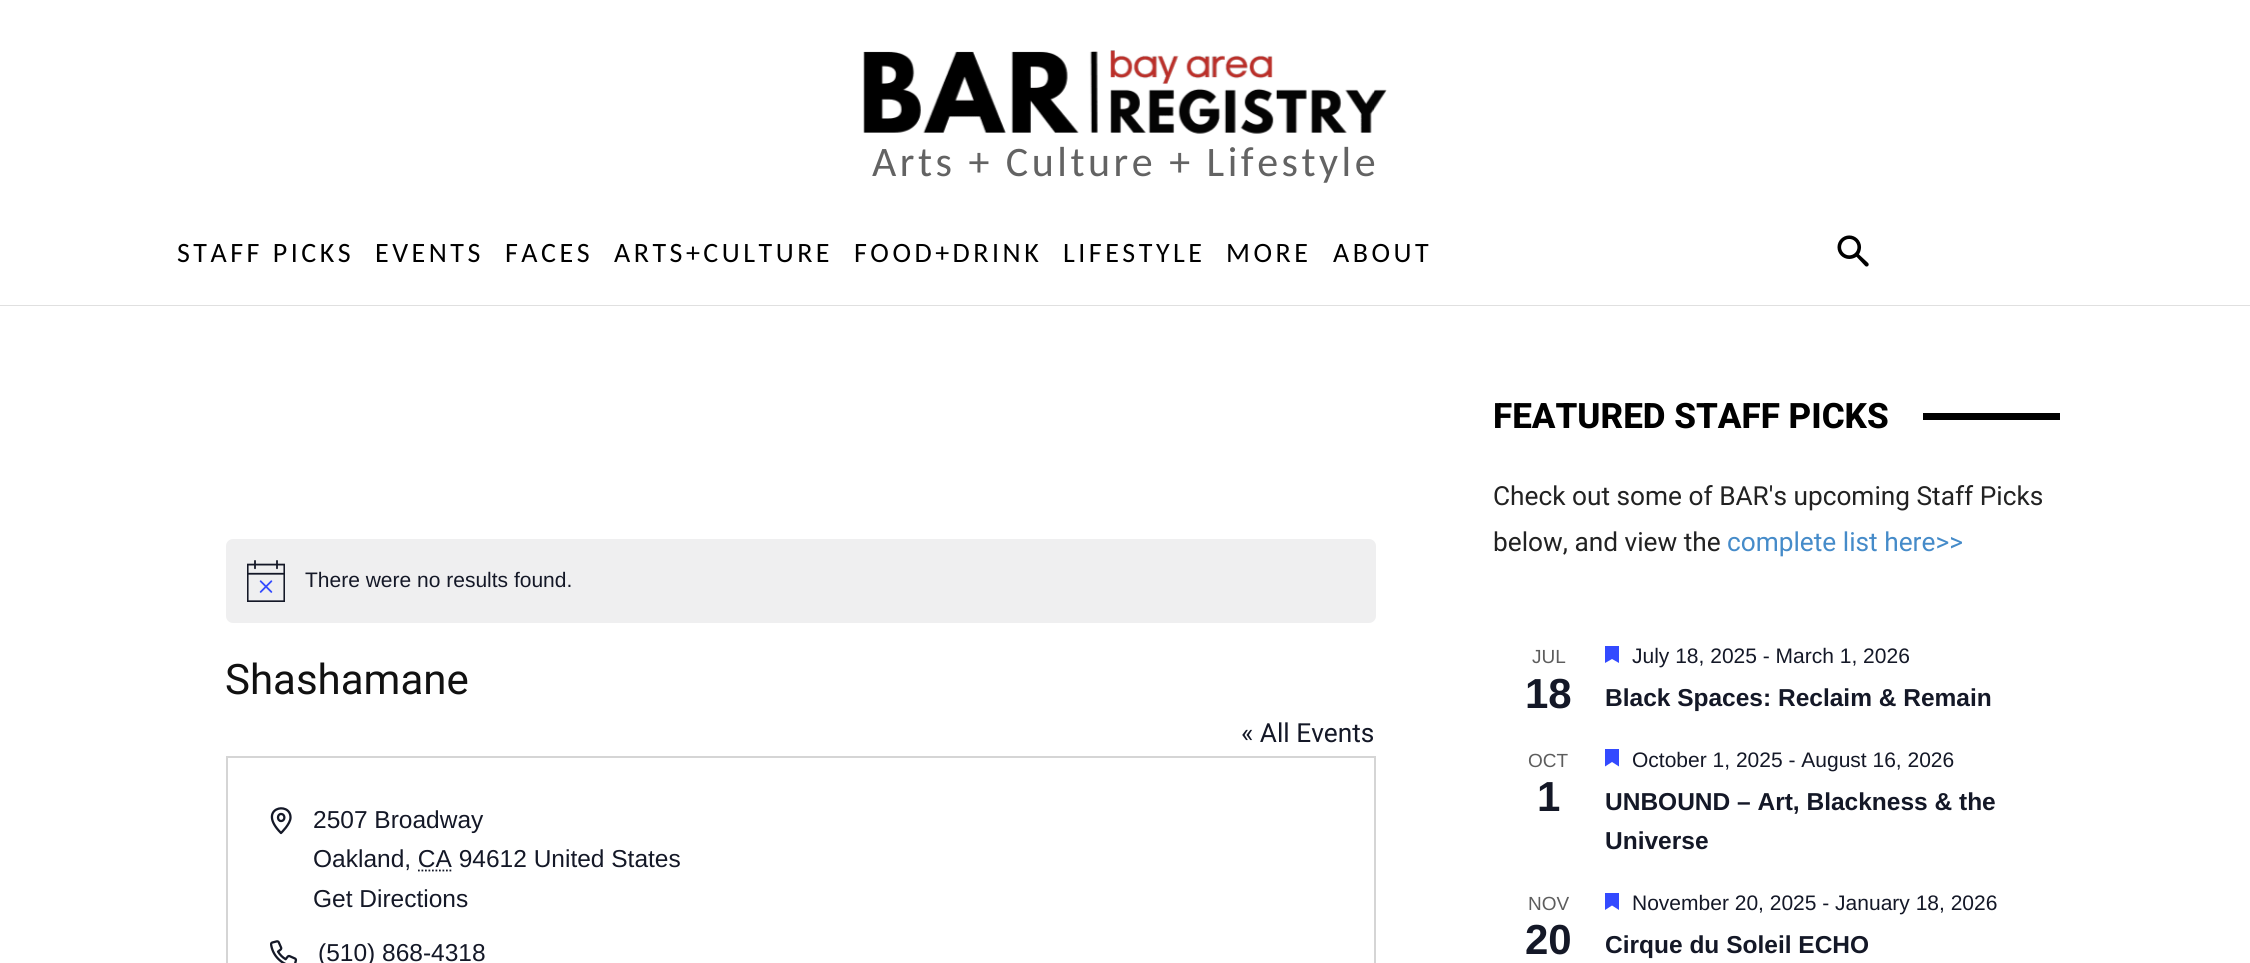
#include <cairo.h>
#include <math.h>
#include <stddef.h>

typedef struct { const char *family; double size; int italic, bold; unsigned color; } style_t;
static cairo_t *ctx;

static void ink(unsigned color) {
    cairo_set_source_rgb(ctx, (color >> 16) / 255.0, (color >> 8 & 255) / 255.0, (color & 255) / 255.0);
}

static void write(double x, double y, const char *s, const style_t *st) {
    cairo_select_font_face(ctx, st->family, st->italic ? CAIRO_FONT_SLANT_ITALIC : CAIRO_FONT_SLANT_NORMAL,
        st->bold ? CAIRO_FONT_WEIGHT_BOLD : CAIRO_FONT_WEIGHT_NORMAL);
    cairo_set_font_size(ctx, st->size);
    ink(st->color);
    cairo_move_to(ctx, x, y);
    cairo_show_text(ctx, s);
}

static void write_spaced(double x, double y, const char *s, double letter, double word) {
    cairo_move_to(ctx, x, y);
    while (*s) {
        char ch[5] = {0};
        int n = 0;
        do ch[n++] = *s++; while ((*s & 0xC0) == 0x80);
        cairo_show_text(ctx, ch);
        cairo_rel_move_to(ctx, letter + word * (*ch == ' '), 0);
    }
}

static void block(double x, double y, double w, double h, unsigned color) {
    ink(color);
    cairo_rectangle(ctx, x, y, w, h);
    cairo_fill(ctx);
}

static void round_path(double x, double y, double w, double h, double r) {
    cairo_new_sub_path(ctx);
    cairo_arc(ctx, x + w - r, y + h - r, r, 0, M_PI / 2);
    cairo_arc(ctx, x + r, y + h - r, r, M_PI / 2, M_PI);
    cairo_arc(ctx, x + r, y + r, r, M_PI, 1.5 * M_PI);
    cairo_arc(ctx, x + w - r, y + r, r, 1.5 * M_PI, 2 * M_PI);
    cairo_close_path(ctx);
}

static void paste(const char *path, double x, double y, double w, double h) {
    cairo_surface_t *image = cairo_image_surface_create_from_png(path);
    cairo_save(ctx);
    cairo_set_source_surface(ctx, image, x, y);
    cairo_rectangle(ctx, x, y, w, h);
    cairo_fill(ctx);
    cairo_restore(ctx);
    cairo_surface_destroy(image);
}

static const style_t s1 = {"Liberation Sans", 21, 0, 0, 0x141827};
static const style_t s2 = {"Roboto", 42, 0, 0, 0x111111};
static const style_t s3 = {"Roboto", 26.25, 0, 0, 0x141827};
static const style_t s4 = {"Liberation Sans", 24.5, 0, 0, 0x141827};
static const style_t s5 = {"Roboto ExtraBold", 35, 0, 0, 0x000000};
static const style_t s6 = {"Roboto", 26.25, 0, 0, 0x222222};
static const style_t s7 = {"Roboto", 26.25, 0, 0, 0x458bc9};
static const style_t s8 = {"Liberation Sans", 19, 0, 0, 0x5d5d5d};
static const style_t s9 = {"Liberation Sans", 42, 0, 1, 0x141827};
static const style_t s10 = {"Liberation Sans", 24.5, 0, 1, 0x141827};

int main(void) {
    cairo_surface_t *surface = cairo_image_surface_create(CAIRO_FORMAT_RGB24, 2250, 963);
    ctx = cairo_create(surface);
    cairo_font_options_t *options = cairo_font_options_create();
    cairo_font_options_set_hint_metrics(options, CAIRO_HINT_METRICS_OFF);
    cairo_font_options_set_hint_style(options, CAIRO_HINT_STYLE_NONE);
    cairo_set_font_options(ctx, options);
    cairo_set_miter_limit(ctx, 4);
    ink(0xffffff);
    cairo_paint(ctx);
    paste("pic1.png", 863, 50, 524, 84);
    cairo_select_font_face(ctx, "Carlito", CAIRO_FONT_SLANT_NORMAL, CAIRO_FONT_WEIGHT_NORMAL);
    cairo_set_font_size(ctx, 42);
    ink(0x636363);
    write_spaced(872, 176, "Arts + Culture + Lifestyle", 3.5, 0);
    cairo_set_font_size(ctx, 28);
    ink(0x000000);
    write_spaced(177, 262, "STAFF PICKS", 3.5, 0);
    write_spaced(375, 262, "EVENTS", 3.5, 0);
    write_spaced(505, 262, "FACES", 3.5, 0);
    write_spaced(614, 262, "ARTS+CULTURE", 3.5, 0);
    write_spaced(854, 262, "FOOD+DRINK", 3.5, 0);
    write_spaced(1063, 262, "LIFESTYLE", 3.5, 0);
    write_spaced(1226, 262, "MORE", 3.5, 0);
    write_spaced(1333, 262, "ABOUT", 3.5, 0);
    paste("pic2.png", 1837, 235, 32, 32);
    block(0, 305, 2250, 1, 0xe0e0e0);
    ink(0xefeff0);
    round_path(226, 539, 1150, 84, 7);
    cairo_fill(ctx);
    paste("pic3.png", 247, 560, 38, 42);
    write(305, 587, "There were no results found.", &s1);
    write(225, 694, "Shashamane", &s2);
    write(1241, 742, "« All Events", &s3);
    cairo_rectangle(ctx, 227, 757, 1148, 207);
    ink(0xd5d5d5);
    cairo_stroke(ctx);
    cairo_new_path(ctx);
    cairo_move_to(ctx, 290.5, 817.5);
    cairo_curve_to(ctx, 290.5, 824, 281, 833, 281, 833);
    cairo_curve_to(ctx, 256, 808, 290.5, 800.5, 290.5, 817.5);
    cairo_close_path(ctx);
    cairo_move_to(ctx, 281, 821);
    cairo_curve_to(ctx, 285.5, 821, 285.5, 814, 281, 814);
    cairo_curve_to(ctx, 277, 814, 277, 821, 281, 821);
    cairo_close_path(ctx);
    ink(0x141827);
    cairo_set_line_width(ctx, 2.3);
    cairo_set_line_cap(ctx, CAIRO_LINE_CAP_ROUND);
    cairo_set_line_join(ctx, CAIRO_LINE_JOIN_ROUND);
    cairo_stroke(ctx);
    write(313, 828, "2507 Broadway", &s4);
    write(313, 867, "Oakland, CA 94612 United States", &s4);
    cairo_new_path(ctx);
    cairo_move_to(ctx, 418, 870.5);
    cairo_line_to(ctx, 452, 870.5);
    cairo_set_line_width(ctx, 1.8);
    cairo_set_line_cap(ctx, CAIRO_LINE_CAP_BUTT);
    cairo_set_line_join(ctx, CAIRO_LINE_JOIN_MITER);
    cairo_set_dash(ctx, (double[]){1.75, 1.75}, 2, 0);
    cairo_stroke(ctx);
    write(313, 907, "Get Directions", &s4);
    paste("pic4.png", 270, 940, 28, 23);
    write(318, 961, "(510) 868-4318", &s4);
    write(1493, 428, "FEATURED STAFF PICKS", &s5);
    block(1923, 413, 137, 7, 0x000000);
    write(1493, 505, "Check out some of BAR's upcoming Staff Picks", &s6);
    write(1493, 551, "below, and view the", &s6);
    write(1727, 551, "complete list here>>", &s7);
    write(1532, 663, "JUL", &s8);
    write(1525, 708, "18", &s9);
    ink(0x334aff);
    cairo_set_fill_rule(ctx, CAIRO_FILL_RULE_EVEN_ODD);
    cairo_new_path(ctx);
    cairo_move_to(ctx, 1605, 646);
    cairo_line_to(ctx, 1619, 646);
    cairo_line_to(ctx, 1619, 663);
    cairo_line_to(ctx, 1612, 659);
    cairo_line_to(ctx, 1605, 663);
    cairo_close_path(ctx);
    cairo_fill(ctx);
    write(1632, 663, "July 18, 2025 - March 1, 2026", &s1);
    write(1605, 706, "Black Spaces: Reclaim & Remain", &s10);
    write(1528, 767, "OCT", &s8);
    write(1537, 811, "1", &s9);
    ink(0x334aff);
    cairo_new_path(ctx);
    cairo_move_to(ctx, 1605, 749);
    cairo_line_to(ctx, 1619, 749);
    cairo_line_to(ctx, 1619, 766.5);
    cairo_line_to(ctx, 1612, 762);
    cairo_line_to(ctx, 1605, 766.5);
    cairo_close_path(ctx);
    cairo_fill(ctx);
    write(1632, 767, "October 1, 2025 - August 16, 2026", &s1);
    write(1605, 810, "UNBOUND – Art, Blackness & the", &s10);
    write(1605, 849, "Universe", &s10);
    write(1528, 910, "NOV", &s8);
    write(1525, 954, "20", &s9);
    cairo_save(ctx);
    cairo_set_fill_rule(ctx, CAIRO_FILL_RULE_WINDING);
    cairo_rectangle(ctx, 1605, 893, 14, 17);
    cairo_clip(ctx);
    ink(0x334aff);
    cairo_set_fill_rule(ctx, CAIRO_FILL_RULE_EVEN_ODD);
    cairo_new_path(ctx);
    cairo_move_to(ctx, 1605, 892.5);
    cairo_line_to(ctx, 1619, 892.5);
    cairo_line_to(ctx, 1619, 910);
    cairo_line_to(ctx, 1612, 905.5);
    cairo_line_to(ctx, 1605, 910);
    cairo_close_path(ctx);
    cairo_fill(ctx);
    cairo_restore(ctx);
    write(1632, 910, "November 20, 2025 - January 18, 2026", &s1);
    write(1605, 953, "Cirque du Soleil ECHO", &s10);
    cairo_surface_write_to_png(surface, "screenshot.png");
    cairo_font_options_destroy(options);
    cairo_destroy(ctx);
    cairo_surface_destroy(surface);
    return 0;
}
